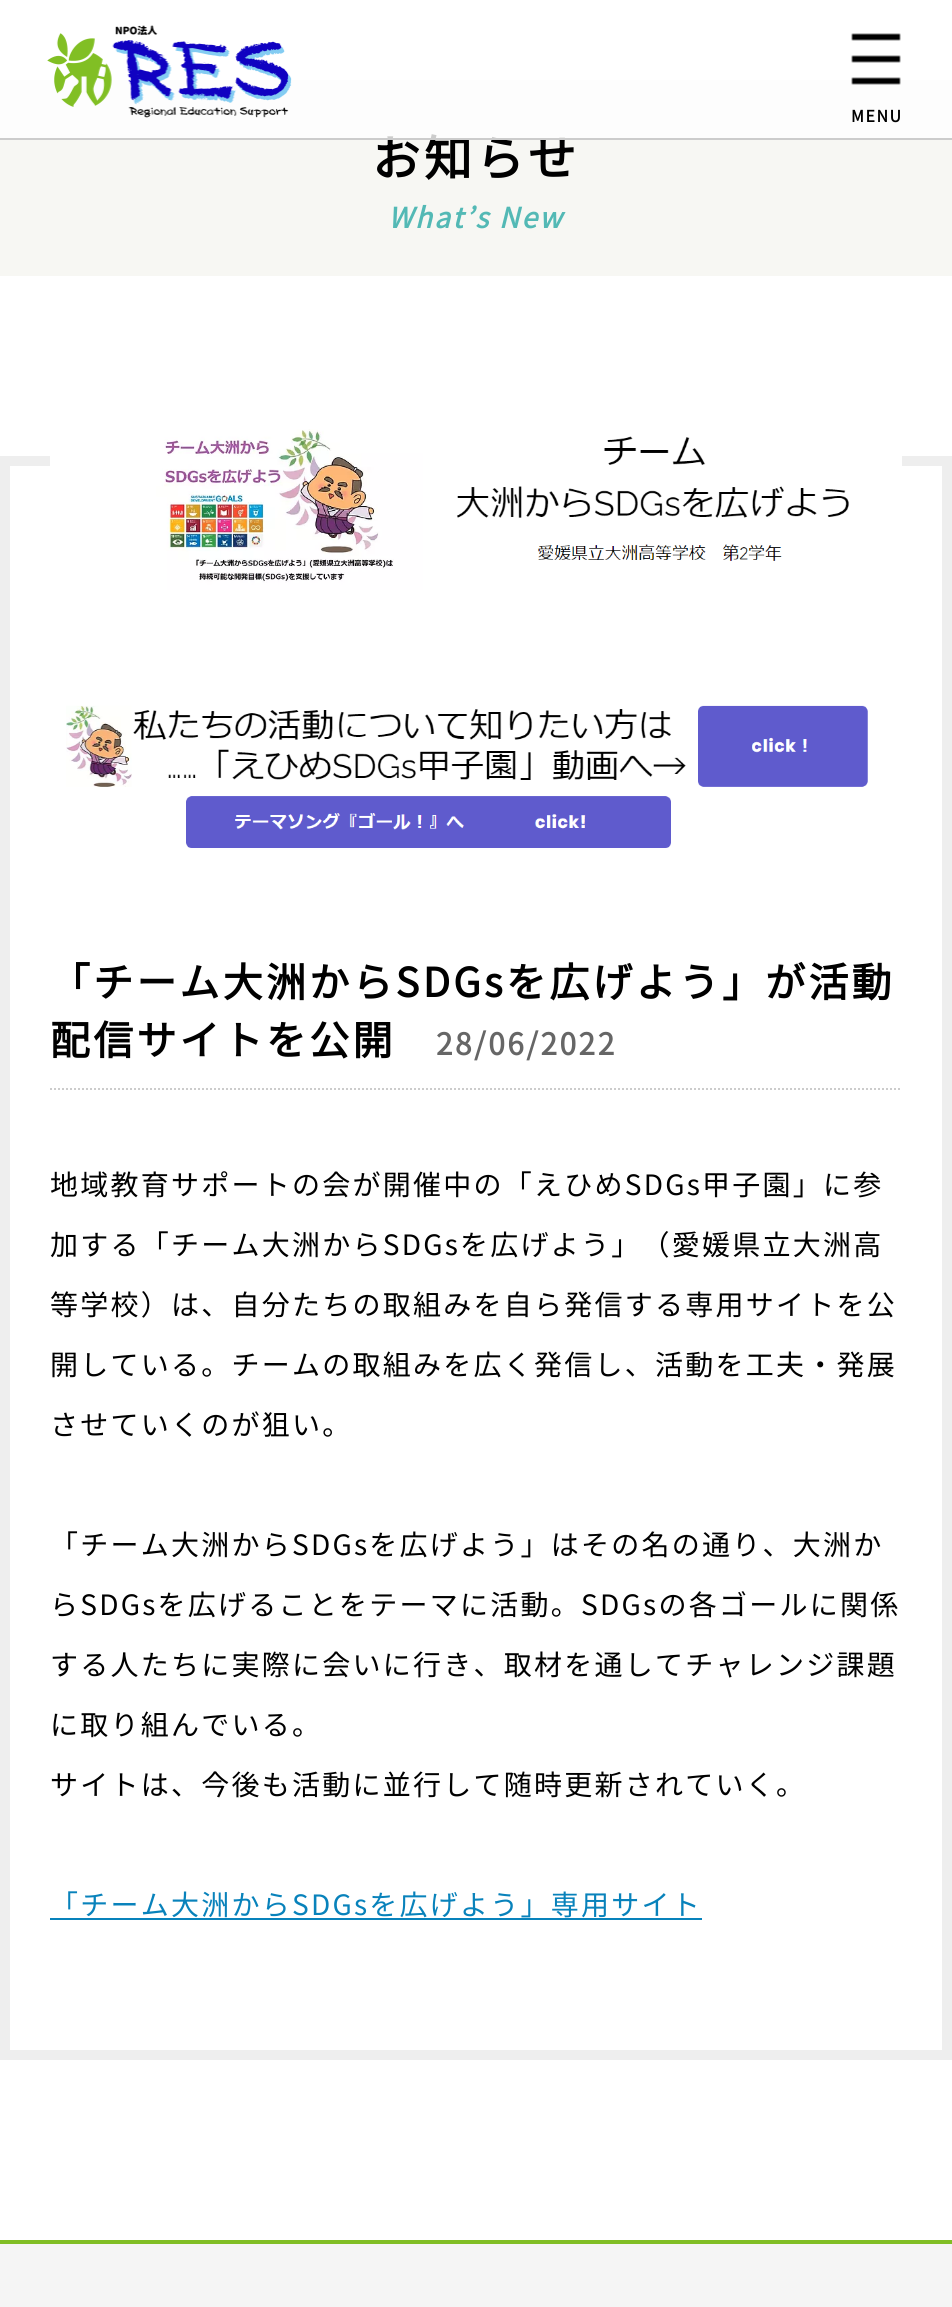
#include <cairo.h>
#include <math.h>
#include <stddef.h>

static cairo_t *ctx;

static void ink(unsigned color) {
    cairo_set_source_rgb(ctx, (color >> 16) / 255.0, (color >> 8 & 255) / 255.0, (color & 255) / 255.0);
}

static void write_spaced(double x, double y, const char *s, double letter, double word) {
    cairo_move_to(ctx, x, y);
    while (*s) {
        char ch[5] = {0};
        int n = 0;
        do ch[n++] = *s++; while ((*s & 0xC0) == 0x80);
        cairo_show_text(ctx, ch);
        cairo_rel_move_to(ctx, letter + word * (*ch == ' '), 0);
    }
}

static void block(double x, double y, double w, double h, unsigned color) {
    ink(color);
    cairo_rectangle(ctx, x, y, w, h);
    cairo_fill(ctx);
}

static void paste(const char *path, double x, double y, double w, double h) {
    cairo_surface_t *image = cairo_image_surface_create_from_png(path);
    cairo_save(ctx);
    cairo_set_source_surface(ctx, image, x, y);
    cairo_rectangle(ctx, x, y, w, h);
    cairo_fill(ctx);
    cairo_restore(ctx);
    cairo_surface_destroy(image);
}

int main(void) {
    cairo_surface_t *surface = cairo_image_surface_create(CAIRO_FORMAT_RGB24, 952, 2307);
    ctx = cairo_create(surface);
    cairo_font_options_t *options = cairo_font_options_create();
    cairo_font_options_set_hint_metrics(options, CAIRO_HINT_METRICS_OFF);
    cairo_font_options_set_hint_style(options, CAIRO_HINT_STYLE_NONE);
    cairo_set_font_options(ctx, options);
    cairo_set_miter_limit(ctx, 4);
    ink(0xffffff);
    cairo_paint(ctx);
    block(0, 80, 952, 196, 0xf7f7f3);
    cairo_select_font_face(ctx, "Noto Sans JP", CAIRO_FONT_SLANT_NORMAL, CAIRO_FONT_WEIGHT_BOLD);
    cairo_set_font_size(ctx, 48);
    ink(0x000000);
    write_spaced(372, 176, "お知らせ", 4, 0);
    cairo_set_source_rgba(ctx, 1, 1, 1, 0.8);
    cairo_rectangle(ctx, 0, 80, 952, 58);
    cairo_fill(ctx);
    block(0, 138, 952, 2, 0xcccccc);
    paste("pic1.png", 47, 25, 245, 93);
    paste("pic2.png", 851, 33, 50, 52);
    cairo_set_font_size(ctx, 16);
    ink(0x000000);
    write_spaced(851, 122, "MENU", 1.5, 0);
    cairo_select_font_face(ctx, "Noto Sans JP", CAIRO_FONT_SLANT_ITALIC, CAIRO_FONT_WEIGHT_BOLD);
    cairo_set_font_size(ctx, 28);
    ink(0x53b9b5);
    write_spaced(388, 228, "What’s New", 2.25, 0);
    cairo_rectangle(ctx, 5, 461, 942, 1594);
    ink(0xeeeeee);
    cairo_set_line_width(ctx, 10);
    cairo_stroke(ctx);
    paste("pic3.png", 50, 429, 852, 419);
    cairo_new_path(ctx);
    cairo_move_to(ctx, 50, 1089);
    cairo_line_to(ctx, 902, 1089);
    ink(0xcccccc);
    cairo_set_line_width(ctx, 2);
    cairo_set_dash(ctx, (double[]){2, 2}, 2, 0);
    cairo_stroke(ctx);
    cairo_select_font_face(ctx, "Noto Sans JP", CAIRO_FONT_SLANT_NORMAL, CAIRO_FONT_WEIGHT_BOLD);
    cairo_set_font_size(ctx, 40);
    ink(0x000000);
    write_spaced(50, 997, "「チーム大洲からSDGsを広げよう」が活動", 3.2, 0);
    write_spaced(50, 1055, "配信サイトを公開", 3.2, 0);
    cairo_set_font_size(ctx, 30);
    ink(0x666666);
    write_spaced(436, 1055, "28/06/2022", 2.4, 0);
    cairo_select_font_face(ctx, "Noto Sans JP Thin", CAIRO_FONT_SLANT_NORMAL, CAIRO_FONT_WEIGHT_NORMAL);
    cairo_set_font_size(ctx, 28);
    ink(0x000000);
    write_spaced(50, 1195, "地域教育サポートの会が開催中の「えひめSDGs甲子園」に参", 2.25, 0);
    write_spaced(50, 1255, "加する「チーム大洲からSDGsを広げよう」（愛媛県立大洲高", 2.25, 0);
    write_spaced(50, 1315, "等学校）は、自分たちの取組みを自ら発信する専用サイトを公", 2.25, 0);
    write_spaced(50, 1375, "開している。チームの取組みを広く発信し、活動を工夫・発展", 2.25, 0);
    write_spaced(50, 1435, "させていくのが狙い。", 2.25, 0);
    write_spaced(50, 1555, "「チーム大洲からSDGsを広げよう」はその名の通り、大洲か", 2.25, 0);
    write_spaced(50, 1615, "らSDGsを広げることをテーマに活動。SDGsの各ゴールに関係", 2.25, 0);
    write_spaced(50, 1675, "する人たちに実際に会いに行き、取材を通してチャレンジ課題", 2.25, 0);
    write_spaced(50, 1735, "に取り組んでいる。", 2.25, 0);
    write_spaced(50, 1795, "サイトは、今後も活動に並行して随時更新されていく。", 2.25, 0);
    ink(0x0882bb);
    write_spaced(50, 1915, "「チーム大洲からSDGsを広げよう」専用サイト", 2.25, 0);
    block(50, 1918, 652, 2, 0x0882bb);
    block(0, 2244, 952, 63, 0xf5f5f5);
    block(0, 2240, 952, 4, 0x81be25);
    cairo_surface_write_to_png(surface, "screenshot.png");
    cairo_font_options_destroy(options);
    cairo_destroy(ctx);
    cairo_surface_destroy(surface);
    return 0;
}
